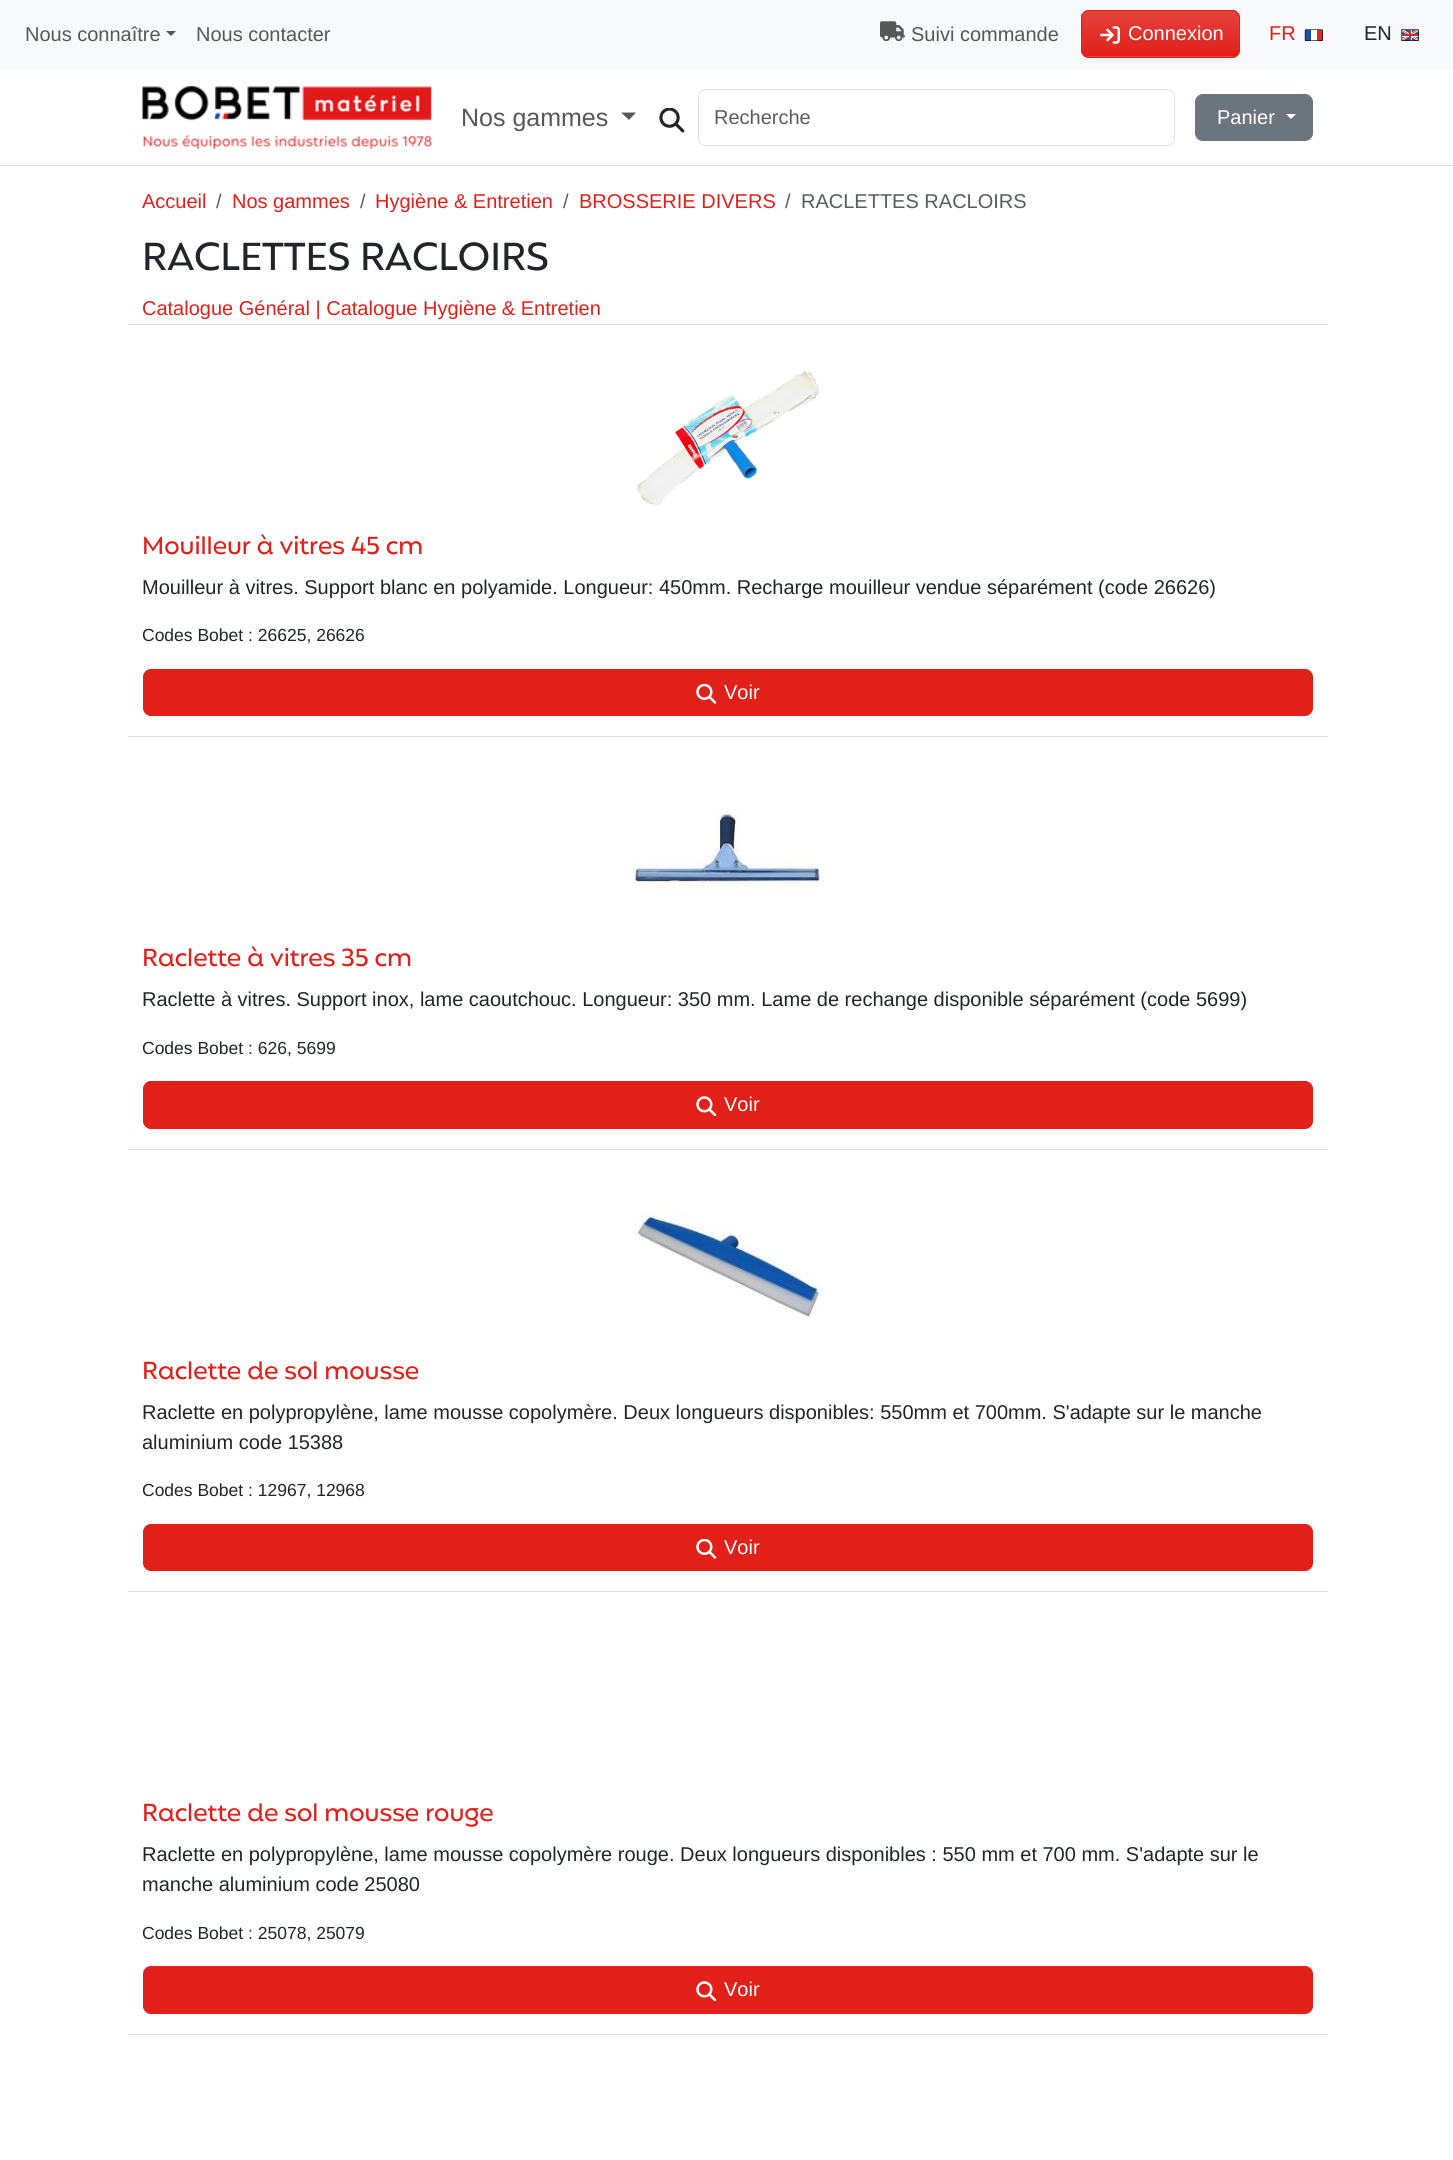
#include <cairo.h>
#include <math.h>
#include <stddef.h>

typedef struct { const char *family; double size; int italic, bold; unsigned color; } style_t;
static cairo_t *ctx;

static void ink(unsigned color) {
    cairo_set_source_rgb(ctx, (color >> 16) / 255.0, (color >> 8 & 255) / 255.0, (color & 255) / 255.0);
}

static void write(double x, double y, const char *s, const style_t *st) {
    cairo_select_font_face(ctx, st->family, st->italic ? CAIRO_FONT_SLANT_ITALIC : CAIRO_FONT_SLANT_NORMAL,
        st->bold ? CAIRO_FONT_WEIGHT_BOLD : CAIRO_FONT_WEIGHT_NORMAL);
    cairo_set_font_size(ctx, st->size);
    ink(st->color);
    cairo_move_to(ctx, x, y);
    cairo_show_text(ctx, s);
}

static void block(double x, double y, double w, double h, unsigned color) {
    ink(color);
    cairo_rectangle(ctx, x, y, w, h);
    cairo_fill(ctx);
}

static void round_path(double x, double y, double w, double h, double r) {
    cairo_new_sub_path(ctx);
    cairo_arc(ctx, x + w - r, y + h - r, r, 0, M_PI / 2);
    cairo_arc(ctx, x + r, y + h - r, r, M_PI / 2, M_PI);
    cairo_arc(ctx, x + r, y + r, r, M_PI, 1.5 * M_PI);
    cairo_arc(ctx, x + w - r, y + r, r, 1.5 * M_PI, 2 * M_PI);
    cairo_close_path(ctx);
}

static void paste(const char *path, double x, double y, double w, double h) {
    cairo_surface_t *image = cairo_image_surface_create_from_png(path);
    cairo_save(ctx);
    cairo_set_source_surface(ctx, image, x, y);
    cairo_rectangle(ctx, x, y, w, h);
    cairo_fill(ctx);
    cairo_restore(ctx);
    cairo_surface_destroy(image);
}

static const style_t s1 = {"Liberation Sans", 20, 0, 0, 0x575758};
static const style_t s2 = {"Liberation Sans", 20, 0, 0, 0xffffff};
static const style_t s3 = {"Liberation Sans", 20, 0, 0, 0xe1201a};
static const style_t s4 = {"Liberation Sans", 20, 0, 0, 0x212529};
static const style_t s5 = {"Liberation Sans", 25, 0, 0, 0x575758};
static const style_t s6 = {"Liberation Sans", 20, 0, 0, 0x595c5f};
static const style_t s7 = {"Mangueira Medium", 39.5, 0, 0, 0x212529};
static const style_t s8 = {"Mangueira Medium", 25, 0, 0, 0xe1201a};
static const style_t s9 = {"Liberation Sans", 17.5, 0, 0, 0x212529};

int main(void) {
    cairo_surface_t *surface = cairo_image_surface_create(CAIRO_FORMAT_RGB24, 1453, 2160);
    ctx = cairo_create(surface);
    cairo_font_options_t *options = cairo_font_options_create();
    cairo_font_options_set_hint_metrics(options, CAIRO_HINT_METRICS_OFF);
    cairo_font_options_set_hint_style(options, CAIRO_HINT_STYLE_NONE);
    cairo_set_font_options(ctx, options);
    cairo_set_miter_limit(ctx, 4);
    cairo_pattern_t *gradient;
    ink(0xffffff);
    cairo_paint(ctx);
    block(0, 0, 1453, 70, 0xf8f9fa);
    write(25, 41, "Nous connaître", &s1);
    cairo_new_path(ctx);
    cairo_move_to(ctx, 166, 31);
    cairo_line_to(ctx, 176, 31);
    cairo_line_to(ctx, 171, 36);
    cairo_close_path(ctx);
    cairo_fill(ctx);
    write(196, 41, "Nous contacter", &s1);
    paste("pic1.png", 880, 21, 25, 20);
    write(911, 41, "Suivi commande", &s1);
    ink(0xe1201a);
    round_path(1081, 10, 159, 48, 8);
    cairo_fill(ctx);
    cairo_save(ctx);
    round_path(1081, 10, 159, 48, 8);
    cairo_clip(ctx);
    gradient = cairo_pattern_create_linear(1161, 11, 1161, 56);
    cairo_pattern_add_color_stop_rgba(gradient, 0, 1, 1, 1, 0.15);
    cairo_pattern_add_color_stop_rgba(gradient, 1, 1, 1, 1, 0);
    cairo_set_source(ctx, gradient);
    cairo_pattern_destroy(gradient);
    cairo_rectangle(ctx, 1081, 11, 159, 39);
    cairo_fill(ctx);
    gradient = cairo_pattern_create_linear(1161, 56, 1161, 101);
    cairo_pattern_add_color_stop_rgba(gradient, 0, 1, 1, 1, 0.15);
    cairo_pattern_add_color_stop_rgba(gradient, 1, 1, 1, 1, 0);
    cairo_set_source(ctx, gradient);
    cairo_pattern_destroy(gradient);
    cairo_rectangle(ctx, 1081, 56, 159, 2);
    cairo_fill(ctx);
    cairo_restore(ctx);
    round_path(1081.5, 10.5, 158, 47, 7.5);
    cairo_set_line_width(ctx, 1);
    cairo_stroke(ctx);
    paste("pic2.png", 1100, 26, 20, 18);
    write(1128, 40, "Connexion", &s2);
    write(1269, 40, "FR", &s3);
    paste("pic3.png", 1304, 29, 19, 12);
    write(1364, 40, "EN", &s4);
    paste("pic4.png", 1401, 29, 18, 12);
    block(0, 165, 1453, 1, 0xdee2e6);
    paste("pic5.png", 142, 86, 290, 63);
    write(461, 126, "Nos gammes", &s5);
    ink(0x595959);
    cairo_new_path(ctx);
    cairo_move_to(ctx, 621, 112.5);
    cairo_line_to(ctx, 636, 112.5);
    cairo_line_to(ctx, 629, 120);
    cairo_close_path(ctx);
    cairo_fill(ctx);
    paste("pic6.png", 659, 108, 26, 25);
    round_path(698.5, 89.5, 476, 56, 7.5);
    ink(0xdee2e6);
    cairo_stroke(ctx);
    write(714, 124, "Recherche", &s6);
    ink(0x6c757d);
    round_path(1195.5, 94.5, 117, 46, 7.5);
    cairo_fill_preserve(ctx);
    cairo_stroke(ctx);
    write(1217, 124, "Panier", &s2);
    cairo_new_path(ctx);
    cairo_move_to(ctx, 1286, 114);
    cairo_line_to(ctx, 1296, 114);
    cairo_line_to(ctx, 1291, 119);
    cairo_close_path(ctx);
    cairo_fill(ctx);
    write(142, 208, "Accueil", &s3);
    write(216, 208, "/", &s6);
    write(232, 208, "Nos gammes", &s3);
    write(360, 208, "/", &s6);
    write(375, 208, "Hygiène & Entretien", &s3);
    write(563, 208, "/", &s6);
    write(579, 208, "BROSSERIE DIVERS", &s3);
    write(785, 208, "/", &s6);
    write(801, 208, "RACLETTES RACLOIRS", &s6);
    write(142, 270, "RACLETTES RACLOIRS", &s7);
    write(142, 315, "Catalogue Général | Catalogue Hygiène & Entretien", &s3);
    block(128, 324, 1200, 1, 0xdee2e6);
    paste("pic7.png", 636, 370, 183, 136);
    write(142, 554, "Mouilleur à vitres 45 cm", &s8);
    write(142, 594, "Mouilleur à vitres. Support blanc en polyamide. Longueur: 450mm. Recharge mouilleur vendue séparément (code 26626)", &s4);
    write(142, 641, "Codes Bobet : 26625, 26626", &s9);
    ink(0xe1201a);
    round_path(143.5, 669.5, 1169, 46, 7.5);
    cairo_fill_preserve(ctx);
    cairo_stroke(ctx);
    paste("pic8.png", 696, 684, 21, 20);
    write(724, 699, "Voir", &s2);
    block(128, 736, 1200, 1, 0xdee2e6);
    paste("pic9.png", 633, 810, 188, 79);
    write(142, 966, "Raclette à vitres 35 cm", &s8);
    write(142, 1006, "Raclette à vitres. Support inox, lame caoutchouc. Longueur: 350 mm. Lame de rechange disponible séparément (code 5699)", &s4);
    write(142, 1054, "Codes Bobet : 626, 5699", &s9);
    ink(0xe1201a);
    round_path(143.5, 1081.5, 1169, 47, 7.5);
    cairo_fill_preserve(ctx);
    cairo_stroke(ctx);
    paste("pic10.png", 696, 1096, 21, 20);
    write(724, 1111, "Voir", &s2);
    block(128, 1149, 1200, 1, 0xdee2e6);
    paste("pic11.png", 634, 1211, 188, 106);
    write(142, 1379, "Raclette de sol mousse", &s8);
    write(142, 1419, "Raclette en polypropylène, lame mousse copolymère. Deux longueurs disponibles: 550mm et 700mm. S'adapte sur le manche", &s4);
    write(142, 1449, "aluminium code 15388", &s4);
    write(142, 1496, "Codes Bobet : 12967, 12968", &s9);
    ink(0xe1201a);
    round_path(143.5, 1524.5, 1169, 46, 7.5);
    cairo_fill_preserve(ctx);
    cairo_stroke(ctx);
    paste("pic8.png", 696, 1539, 21, 20);
    write(724, 1554, "Voir", &s2);
    block(128, 1591, 1200, 1, 0xdee2e6);
    write(142, 1821, "Raclette de sol mousse rouge", &s8);
    write(142, 1861, "Raclette en polypropylène, lame mousse copolymère rouge. Deux longueurs disponibles : 550 mm et 700 mm. S'adapte sur le", &s4);
    write(142, 1891, "manche aluminium code 25080", &s4);
    write(142, 1939, "Codes Bobet : 25078, 25079", &s9);
    ink(0xe1201a);
    round_path(143.5, 1966.5, 1169, 47, 7.5);
    cairo_fill_preserve(ctx);
    cairo_stroke(ctx);
    paste("pic10.png", 696, 1981, 21, 20);
    write(724, 1996, "Voir", &s2);
    block(128, 2034, 1200, 1, 0xdee2e6);
    cairo_surface_write_to_png(surface, "screenshot.png");
    cairo_font_options_destroy(options);
    cairo_destroy(ctx);
    cairo_surface_destroy(surface);
    return 0;
}
